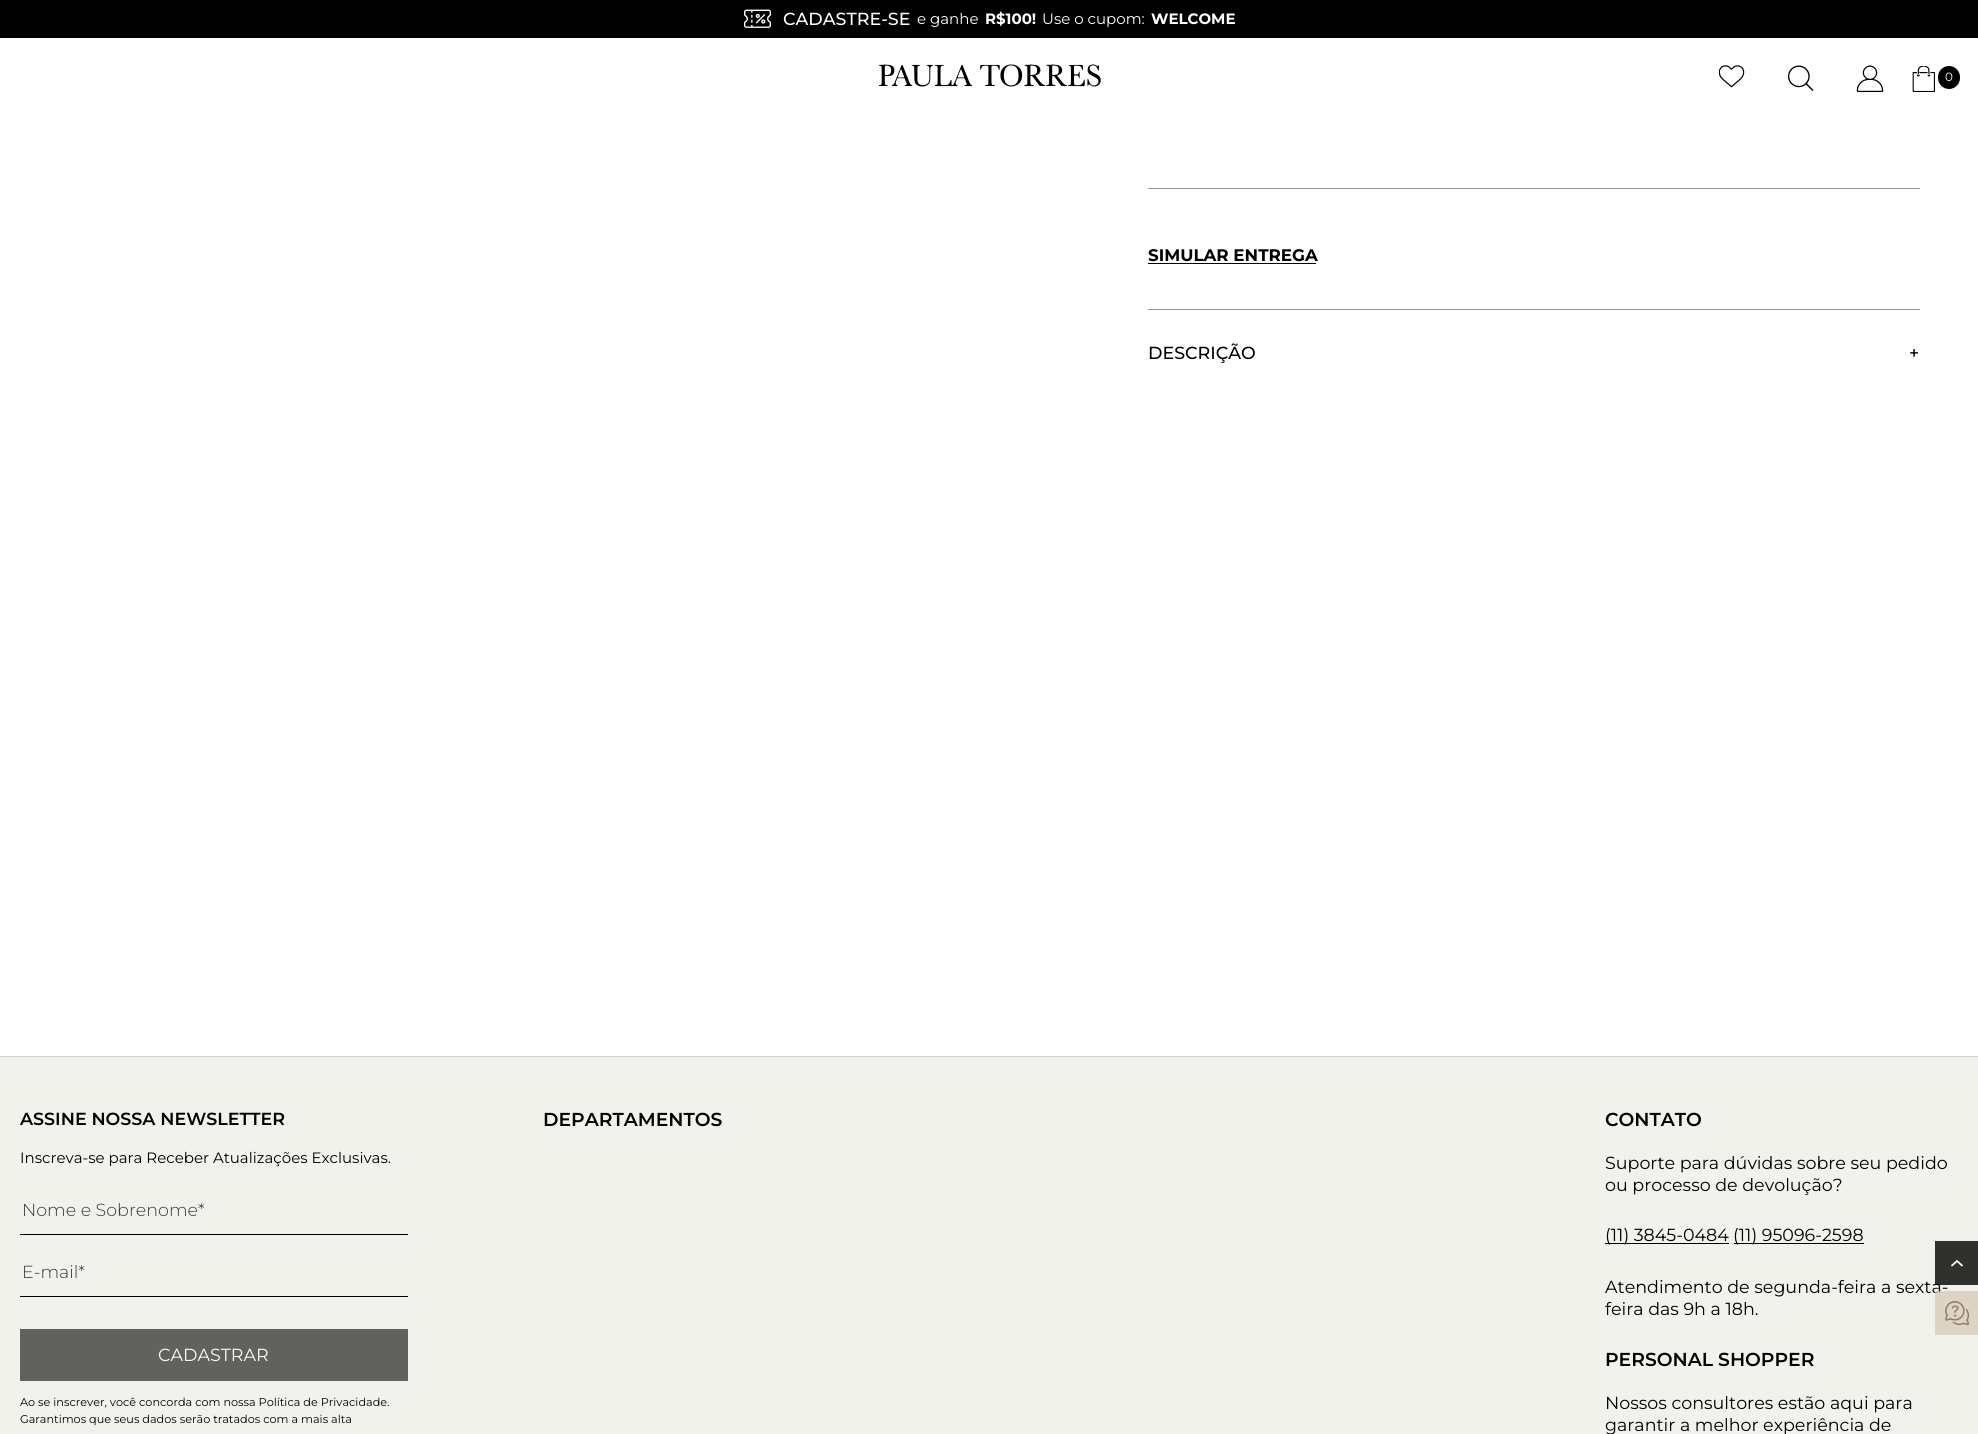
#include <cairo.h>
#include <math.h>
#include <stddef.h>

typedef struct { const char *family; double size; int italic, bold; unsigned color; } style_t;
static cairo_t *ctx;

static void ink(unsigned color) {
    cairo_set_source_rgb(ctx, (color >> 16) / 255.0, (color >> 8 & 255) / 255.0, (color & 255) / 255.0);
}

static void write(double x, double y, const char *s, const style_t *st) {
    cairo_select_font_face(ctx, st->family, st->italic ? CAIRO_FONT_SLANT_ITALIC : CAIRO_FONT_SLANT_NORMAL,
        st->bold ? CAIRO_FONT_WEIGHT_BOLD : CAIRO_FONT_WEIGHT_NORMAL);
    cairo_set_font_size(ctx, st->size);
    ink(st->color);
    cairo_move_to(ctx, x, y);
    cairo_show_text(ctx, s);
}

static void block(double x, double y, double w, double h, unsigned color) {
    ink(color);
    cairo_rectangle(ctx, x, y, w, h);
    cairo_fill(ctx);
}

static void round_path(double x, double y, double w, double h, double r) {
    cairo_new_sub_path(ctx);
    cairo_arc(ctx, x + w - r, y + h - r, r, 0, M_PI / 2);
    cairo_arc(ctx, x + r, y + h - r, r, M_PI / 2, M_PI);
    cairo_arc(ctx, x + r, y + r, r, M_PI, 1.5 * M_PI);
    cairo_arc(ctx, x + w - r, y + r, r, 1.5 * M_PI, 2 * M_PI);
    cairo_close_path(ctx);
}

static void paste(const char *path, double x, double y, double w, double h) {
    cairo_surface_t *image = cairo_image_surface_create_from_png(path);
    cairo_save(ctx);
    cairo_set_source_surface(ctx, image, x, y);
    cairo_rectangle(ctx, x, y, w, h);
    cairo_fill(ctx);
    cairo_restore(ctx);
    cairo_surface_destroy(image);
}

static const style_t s1 = {"Montserrat Medium", 17.5, 0, 0, 0xffffff};
static const style_t s2 = {"Montserrat", 15, 0, 0, 0xffffff};
static const style_t s3 = {"Montserrat", 15, 0, 1, 0xffffff};
static const style_t s4 = {"Montserrat", 12, 0, 0, 0xffffff};
static const style_t s5 = {"Montserrat", 16.75, 0, 1, 0x000000};
static const style_t s6 = {"Montserrat Medium", 17.5, 0, 0, 0x000000};
static const style_t s7 = {"Montserrat SemiBold", 17.5, 0, 0, 0x000000};
static const style_t s8 = {"Montserrat", 15, 0, 0, 0x000000};
static const style_t s9 = {"Montserrat Light", 17.5, 0, 0, 0x393939};
static const style_t s10 = {"Montserrat", 17.5, 0, 0, 0xfafaf8};
static const style_t s11 = {"Montserrat", 11.25, 0, 0, 0x000000};
static const style_t s12 = {"Montserrat SemiBold", 18.75, 0, 0, 0x000000};
static const style_t s13 = {"Montserrat", 17.5, 0, 0, 0x000000};

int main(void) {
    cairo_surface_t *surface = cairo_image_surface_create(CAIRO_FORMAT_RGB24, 1978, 1434);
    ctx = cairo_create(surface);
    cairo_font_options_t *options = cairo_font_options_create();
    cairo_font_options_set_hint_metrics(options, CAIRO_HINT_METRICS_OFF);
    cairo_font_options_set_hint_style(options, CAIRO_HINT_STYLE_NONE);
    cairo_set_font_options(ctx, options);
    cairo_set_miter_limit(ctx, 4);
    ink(0xffffff);
    cairo_paint(ctx);
    block(0, 0, 1978, 38, 0x000000);
    paste("pic1.png", 744, 9, 27, 19);
    write(783, 25, "CADASTRE-SE", &s1);
    write(917, 24, "e ganhe", &s2);
    write(985, 24, "R$100!", &s3);
    write(1042, 24, "Use o cupom:", &s2);
    write(1151, 24, "WELCOME", &s3);
    paste("pic2.png", 879, 64, 222, 23);
    paste("pic3.png", 1719, 65, 26, 23);
    paste("pic4.png", 1788, 65, 26, 26);
    paste("pic5.png", 1856, 65, 28, 28);
    paste("pic6.png", 1912, 66, 23, 26);
    ink(0x000000);
    round_path(1938, 66, 22, 23, 11);
    cairo_fill(ctx);
    write(1945, 81, "0", &s4);
    block(1148, 188, 772, 1, 0x969696);
    write(1148, 261, "SIMULAR ENTREGA", &s5);
    block(1148, 263, 168, 1, 0x000000);
    block(1148, 309, 772, 1, 0x969696);
    write(1148, 359, "DESCRIÇÃO", &s6);
    write(1909, 359, "+", &s6);
    block(0, 1057, 1978, 377, 0xf2f2ed);
    block(0, 1056, 1978, 1, 0xd3d3cf);
    write(20, 1125, "ASSINE NOSSA NEWSLETTER", &s7);
    write(20, 1163, "Inscreva-se para Receber Atualizações Exclusivas.", &s8);
    block(20, 1234, 388, 1, 0x000000);
    write(22, 1216, "Nome e Sobrenome*", &s9);
    block(20, 1296, 388, 1, 0x000000);
    write(22, 1278, "E-mail*", &s9);
    block(20, 1329, 388, 52, 0x61615f);
    write(158, 1361, "CADASTRAR", &s10);
    write(20, 1406, "Ao se inscrever, você concorda com nossa Política de Privacidade.", &s11);
    write(20, 1423, "Garantimos que seus dados serão tratados com a mais alta", &s11);
    write(543, 1126, "DEPARTAMENTOS", &s12);
    write(1605, 1126, "CONTATO", &s12);
    write(1605, 1169, "Suporte para dúvidas sobre seu pedido", &s13);
    write(1605, 1191, "ou processo de devolução?", &s13);
    block(1605, 1243, 124, 1, 0x000000);
    write(1605, 1241, "(11) 3845-0484", &s13);
    block(1734, 1243, 130, 1, 0x000000);
    write(1733, 1241, "(11) 95096-2598", &s13);
    write(1605, 1293, "Atendimento de segunda-feira a sexta-", &s13);
    write(1605, 1315, "feira das 9h a 18h.", &s13);
    write(1605, 1366, "PERSONAL SHOPPER", &s12);
    write(1605, 1409, "Nossos consultores estão aqui para", &s13);
    write(1605, 1431, "garantir a melhor experiência de", &s13);
    cairo_set_source_rgba(ctx, 0, 0, 0, 0.8);
    cairo_rectangle(ctx, 1935, 1241, 43, 44);
    cairo_fill(ctx);
    cairo_new_path(ctx);
    cairo_move_to(ctx, 1952, 1265.5);
    cairo_line_to(ctx, 1957, 1261);
    cairo_line_to(ctx, 1962, 1265.5);
    ink(0xf9f9f8);
    cairo_set_line_width(ctx, 1.8);
    cairo_set_line_cap(ctx, CAIRO_LINE_CAP_ROUND);
    cairo_set_line_join(ctx, CAIRO_LINE_JOIN_ROUND);
    cairo_stroke(ctx);
    cairo_set_source_rgba(ctx, 0.847, 0.804, 0.741, 0.8);
    cairo_rectangle(ctx, 1935, 1291, 43, 44);
    cairo_fill(ctx);
    paste("pic7.png", 1945, 1301, 25, 25);
    cairo_surface_write_to_png(surface, "screenshot.png");
    cairo_font_options_destroy(options);
    cairo_destroy(ctx);
    cairo_surface_destroy(surface);
    return 0;
}
